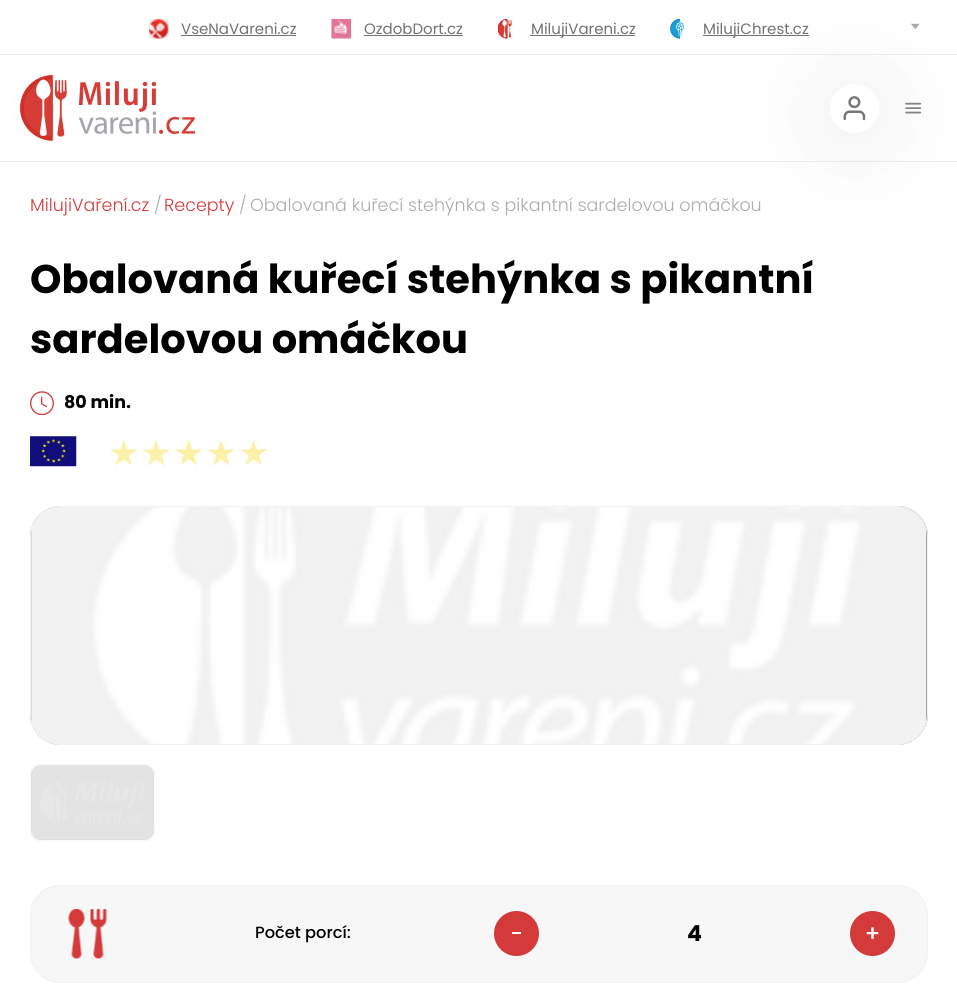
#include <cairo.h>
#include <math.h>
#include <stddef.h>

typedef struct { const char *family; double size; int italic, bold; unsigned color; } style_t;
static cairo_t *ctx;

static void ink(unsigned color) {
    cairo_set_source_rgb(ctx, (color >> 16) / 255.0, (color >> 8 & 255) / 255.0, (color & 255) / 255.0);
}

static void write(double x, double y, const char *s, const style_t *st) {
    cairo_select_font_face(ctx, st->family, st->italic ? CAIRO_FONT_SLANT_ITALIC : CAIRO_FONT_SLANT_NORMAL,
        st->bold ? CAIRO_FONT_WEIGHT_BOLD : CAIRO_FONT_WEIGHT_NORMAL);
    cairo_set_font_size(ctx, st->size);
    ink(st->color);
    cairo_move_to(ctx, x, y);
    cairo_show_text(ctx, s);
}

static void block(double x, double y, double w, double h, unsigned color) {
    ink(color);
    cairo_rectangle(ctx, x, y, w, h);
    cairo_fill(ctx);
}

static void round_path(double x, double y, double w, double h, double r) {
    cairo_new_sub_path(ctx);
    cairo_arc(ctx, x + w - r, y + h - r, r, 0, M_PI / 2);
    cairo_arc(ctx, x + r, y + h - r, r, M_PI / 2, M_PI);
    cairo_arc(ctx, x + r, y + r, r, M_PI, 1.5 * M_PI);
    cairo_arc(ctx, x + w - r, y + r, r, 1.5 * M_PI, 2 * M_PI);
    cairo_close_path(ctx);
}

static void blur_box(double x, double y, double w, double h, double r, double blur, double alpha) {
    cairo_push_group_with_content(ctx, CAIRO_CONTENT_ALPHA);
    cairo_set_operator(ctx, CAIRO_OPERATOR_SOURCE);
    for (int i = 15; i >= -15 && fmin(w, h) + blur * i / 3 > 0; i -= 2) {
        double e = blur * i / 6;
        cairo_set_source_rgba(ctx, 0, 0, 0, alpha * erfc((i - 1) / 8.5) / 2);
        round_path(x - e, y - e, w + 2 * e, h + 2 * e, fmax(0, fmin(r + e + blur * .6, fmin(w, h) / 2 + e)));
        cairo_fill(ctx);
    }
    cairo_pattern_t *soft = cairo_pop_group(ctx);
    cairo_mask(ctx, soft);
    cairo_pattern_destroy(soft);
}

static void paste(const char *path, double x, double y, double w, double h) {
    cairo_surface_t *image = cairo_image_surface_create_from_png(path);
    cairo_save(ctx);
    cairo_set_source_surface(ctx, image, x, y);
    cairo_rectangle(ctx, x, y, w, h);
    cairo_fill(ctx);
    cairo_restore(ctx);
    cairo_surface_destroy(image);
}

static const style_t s1 = {"Poppins", 15, 0, 0, 0x727272};
static const style_t s2 = {"Poppins Light", 17.5, 0, 0, 0xd43a3a};
static const style_t s3 = {"Poppins Light", 17.5, 0, 0, 0xacacac};
static const style_t s4 = {"Poppins", 40, 0, 1, 0x000000};
static const style_t s5 = {"Poppins", 17.5, 0, 1, 0x000000};
static const style_t s6 = {"Poppins Medium", 16.25, 0, 0, 0x000000};
static const style_t s7 = {"Poppins", 22, 0, 1, 0x000000};

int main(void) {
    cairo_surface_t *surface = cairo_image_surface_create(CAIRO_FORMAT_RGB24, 957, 998);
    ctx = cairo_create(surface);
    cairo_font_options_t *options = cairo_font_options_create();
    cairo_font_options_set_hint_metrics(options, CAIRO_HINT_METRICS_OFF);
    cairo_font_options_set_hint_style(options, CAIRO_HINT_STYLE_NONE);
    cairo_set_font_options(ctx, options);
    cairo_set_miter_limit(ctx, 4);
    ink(0xffffff);
    cairo_paint(ctx);
    block(0, 161, 957, 1, 0xebebeb);
    paste("pic1.png", 20, 75, 175, 66);
    paste("pic3.png", 905, 102, 17, 12);
    block(0, 54, 957, 1, 0xebebeb);
    block(703, 35, 106, 1, 0x727272);
    paste("pic8.png", 910, 23, 10, 7);
    ink(0xdedede);
    blur_box(805, 64, 99, 99, 49.5, 31, 0.3);
    ink(0xffffff);
    cairo_arc(ctx, 854.5, 108.5, 24.5, 0, 2 * M_PI);
    cairo_fill(ctx);
    paste("pic2.png", 843, 96, 23, 25);
    paste("pic4.png", 148, 18, 21, 21);
    write(181, 34, "VseNaVareni.cz", &s1);
    block(181, 35, 115, 1, 0x727272);
    paste("pic5.png", 331, 18, 21, 21);
    write(364, 34, "OzdobDort.cz", &s1);
    block(364, 35, 99, 1, 0x727272);
    paste("pic6.png", 498, 19, 14, 20);
    block(530, 35, 105, 1, 0x727272);
    write(531, 34, "MilujiVareni.cz", &s1);
    paste("pic7.png", 670, 19, 14, 20);
    write(703, 34, "MilujiChrest.cz", &s1);
    write(30, 211, "MilujiVaření.cz", &s2);
    write(154, 211, "/", &s3);
    write(164, 211, "Recepty", &s2);
    write(239, 211, "/", &s3);
    write(250, 211, "Obalovaná kuřecí stehýnka s pikantní sardelovou omáčkou", &s3);
    write(30, 293, "Obalovaná kuřecí stehýnka s pikantní", &s4);
    write(30, 353, "sardelovou omáčkou", &s4);
    paste("pic9.png", 30, 391, 24, 24);
    write(64, 408, "80 min.", &s5);
    paste("pic10.png", 30, 436, 47, 31);
    paste("pic11.png", 110, 439, 28, 27);
    ink(0xfbf1a9);
    cairo_new_path(ctx);
    cairo_move_to(ctx, 156, 459.5);
    cairo_line_to(ctx, 148, 465.5);
    cairo_line_to(ctx, 151, 455.5);
    cairo_line_to(ctx, 142.5, 449.5);
    cairo_line_to(ctx, 153, 449.5);
    cairo_line_to(ctx, 156, 439.5);
    cairo_line_to(ctx, 159.5, 449.5);
    cairo_line_to(ctx, 170, 449.5);
    cairo_line_to(ctx, 161.5, 455.5);
    cairo_line_to(ctx, 164.5, 465.5);
    cairo_close_path(ctx);
    cairo_fill(ctx);
    paste("pic11.png", 175, 439, 28, 27);
    cairo_new_path(ctx);
    cairo_move_to(ctx, 221, 459.5);
    cairo_line_to(ctx, 213, 465.5);
    cairo_line_to(ctx, 216, 455.5);
    cairo_line_to(ctx, 207.5, 449.5);
    cairo_line_to(ctx, 218, 449.5);
    cairo_line_to(ctx, 221, 439.5);
    cairo_line_to(ctx, 224.5, 449.5);
    cairo_line_to(ctx, 235, 449.5);
    cairo_line_to(ctx, 226.5, 455.5);
    cairo_line_to(ctx, 229.5, 465.5);
    cairo_close_path(ctx);
    cairo_fill(ctx);
    paste("pic11.png", 240, 439, 28, 27);
    ink(0x8a8a8a);
    round_path(30, 506, 898, 239, 31);
    cairo_fill(ctx);
    paste("pic12.png", 31, 506, 896, 239);
    round_path(30.5, 506.5, 897, 238, 30.5);
    ink(0xf2f2f2);
    cairo_set_line_width(ctx, 1);
    cairo_stroke(ctx);
    ink(0xdcdcdc);
    round_path(30, 764, 125, 77, 11);
    cairo_fill(ctx);
    paste("pic13.png", 31, 764, 123, 75);
    round_path(30.5, 764.5, 124, 76, 10.5);
    ink(0xfbfbfb);
    cairo_stroke(ctx);
    ink(0xf7f7f7);
    round_path(30, 885, 898, 98, 30);
    cairo_fill(ctx);
    round_path(30.5, 885.5, 897, 97, 29.5);
    cairo_set_source_rgba(ctx, 0.922, 0.922, 0.922, 0.4);
    cairo_stroke(ctx);
    paste("pic14.png", 68, 908, 39, 51);
    write(255, 938, "Počet porcí:", &s6);
    ink(0xd43a3a);
    cairo_new_path(ctx);
    cairo_arc(ctx, 516.5, 933.5, 22.5, 0, 2 * M_PI);
    cairo_fill(ctx);
    block(512, 932, 9, 2, 0xffffff);
    write(687, 941, "4", &s7);
    ink(0xd43a3a);
    cairo_new_path(ctx);
    cairo_arc(ctx, 872.5, 933.5, 22.5, 0, 2 * M_PI);
    cairo_fill(ctx);
    paste("pic15.png", 866, 927, 13, 12);
    cairo_surface_write_to_png(surface, "screenshot.png");
    cairo_font_options_destroy(options);
    cairo_destroy(ctx);
    cairo_surface_destroy(surface);
    return 0;
}
